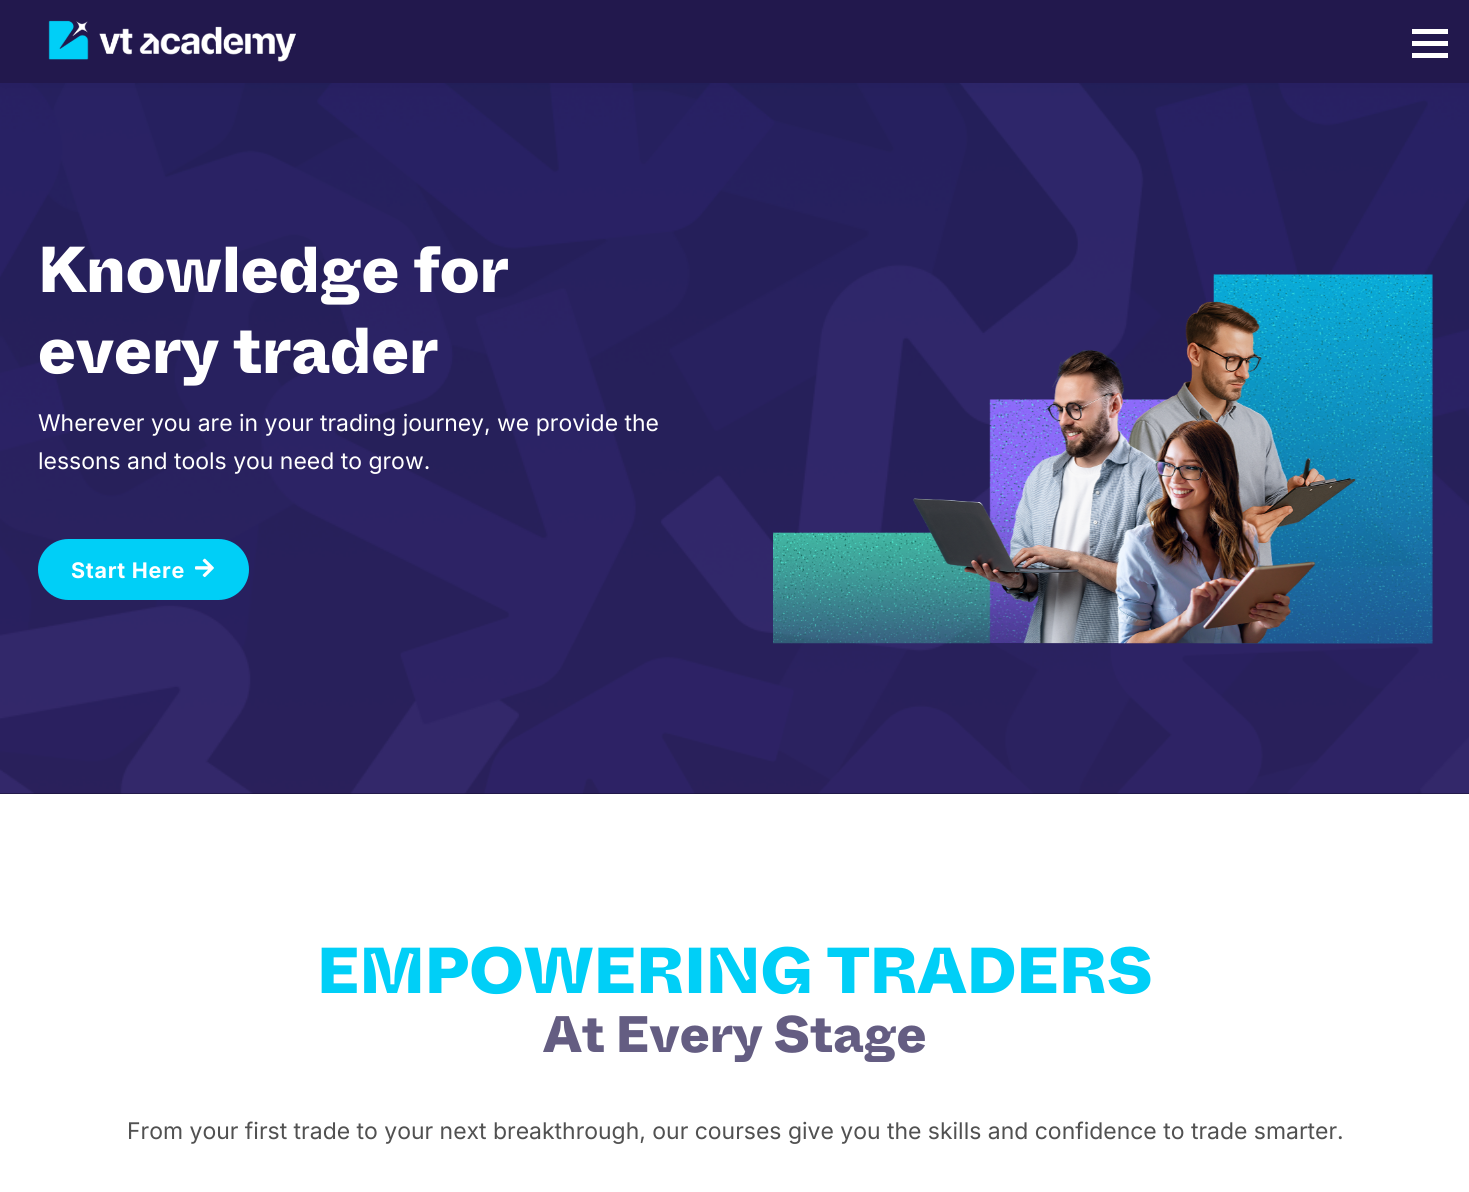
#include <cairo.h>
#include <math.h>
#include <stddef.h>

typedef struct { const char *family; double size; int italic, bold; unsigned color; } style_t;
static cairo_t *ctx;

static void ink(unsigned color) {
    cairo_set_source_rgb(ctx, (color >> 16) / 255.0, (color >> 8 & 255) / 255.0, (color & 255) / 255.0);
}

static void write(double x, double y, const char *s, const style_t *st) {
    cairo_select_font_face(ctx, st->family, st->italic ? CAIRO_FONT_SLANT_ITALIC : CAIRO_FONT_SLANT_NORMAL,
        st->bold ? CAIRO_FONT_WEIGHT_BOLD : CAIRO_FONT_WEIGHT_NORMAL);
    cairo_set_font_size(ctx, st->size);
    ink(st->color);
    cairo_move_to(ctx, x, y);
    cairo_show_text(ctx, s);
}

static void write_spaced(double x, double y, const char *s, double letter, double word) {
    cairo_move_to(ctx, x, y);
    while (*s) {
        char ch[5] = {0};
        int n = 0;
        do ch[n++] = *s++; while ((*s & 0xC0) == 0x80);
        cairo_show_text(ctx, ch);
        cairo_rel_move_to(ctx, letter + word * (*ch == ' '), 0);
    }
}

static void block(double x, double y, double w, double h, unsigned color) {
    ink(color);
    cairo_rectangle(ctx, x, y, w, h);
    cairo_fill(ctx);
}

static void round_path(double x, double y, double w, double h, double r) {
    cairo_new_sub_path(ctx);
    cairo_arc(ctx, x + w - r, y + h - r, r, 0, M_PI / 2);
    cairo_arc(ctx, x + r, y + h - r, r, M_PI / 2, M_PI);
    cairo_arc(ctx, x + r, y + r, r, M_PI, 1.5 * M_PI);
    cairo_arc(ctx, x + w - r, y + r, r, 1.5 * M_PI, 2 * M_PI);
    cairo_close_path(ctx);
}

static void blur_box(double x, double y, double w, double h, double r, double blur, double alpha) {
    cairo_push_group_with_content(ctx, CAIRO_CONTENT_ALPHA);
    cairo_set_operator(ctx, CAIRO_OPERATOR_SOURCE);
    for (int i = 15; i >= -15 && fmin(w, h) + blur * i / 3 > 0; i -= 2) {
        double e = blur * i / 6;
        cairo_set_source_rgba(ctx, 0, 0, 0, alpha * erfc((i - 1) / 8.5) / 2);
        round_path(x - e, y - e, w + 2 * e, h + 2 * e, fmax(0, fmin(r + e + blur * .6, fmin(w, h) / 2 + e)));
        cairo_fill(ctx);
    }
    cairo_pattern_t *soft = cairo_pop_group(ctx);
    cairo_mask(ctx, soft);
    cairo_pattern_destroy(soft);
}

static void paste(const char *path, double x, double y, double w, double h) {
    cairo_surface_t *image = cairo_image_surface_create_from_png(path);
    cairo_save(ctx);
    cairo_set_source_surface(ctx, image, x, y);
    cairo_rectangle(ctx, x, y, w, h);
    cairo_fill(ctx);
    cairo_restore(ctx);
    cairo_surface_destroy(image);
}

static const style_t s1 = {"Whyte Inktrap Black", 64.75, 0, 0, 0xffffff};
static const style_t s2 = {"Inter", 22.95, 0, 0, 0xffffff};
static const style_t s3 = {"Whyte Inktrap Black", 64.75, 0, 0, 0x00cff7};
static const style_t s4 = {"Whyte Inktrap Black", 51.25, 0, 0, 0x645d82};
static const style_t s5 = {"Inter", 22.95, 0, 0, 0x515151};

int main(void) {
    cairo_surface_t *surface = cairo_image_surface_create(CAIRO_FORMAT_RGB24, 1469, 1192);
    ctx = cairo_create(surface);
    cairo_font_options_t *options = cairo_font_options_create();
    cairo_font_options_set_hint_metrics(options, CAIRO_HINT_METRICS_OFF);
    cairo_font_options_set_hint_style(options, CAIRO_HINT_STYLE_NONE);
    cairo_set_font_options(ctx, options);
    cairo_set_miter_limit(ctx, 4);
    ink(0xffffff);
    cairo_paint(ctx);
    block(0, 793, 1469, 1, 0x150f2f);
    paste("pic2.png", 0, 83, 1469, 711);
    ink(0x000000);
    blur_box(0, 0, 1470, 83, 0, 11, 0.05);
    block(0, 0, 1469, 83, 0x22184d);
    paste("pic1.png", 48, 20, 248, 42);
    block(1412, 53, 36, 5, 0xffffff);
    block(1412, 29, 36, 5, 0xffffff);
    block(1412, 41, 36, 5, 0xffffff);
    write(38, 292, "Knowledge for", &s1);
    write(38, 373, "every trader", &s1);
    write(38, 431, "Wherever you are in your trading journey, we provide the", &s2);
    write(38, 469, "lessons and tools you need to grow.", &s2);
    ink(0x00cff7);
    round_path(38, 539, 211, 61, 30.5);
    cairo_fill(ctx);
    cairo_select_font_face(ctx, "Inter", CAIRO_FONT_SLANT_NORMAL, CAIRO_FONT_WEIGHT_BOLD);
    cairo_set_font_size(ctx, 21.5);
    ink(0xffffff);
    write_spaced(71, 578, "Start Here", 0.75, 0);
    paste("pic3.png", 195, 558, 19, 20);
    paste("pic4.png", 773, 274, 660, 370);
    write(317, 993, "EMPOWERING TRADERS", &s3);
    write(543, 1052, "At Every Stage", &s4);
    write(127, 1139, "From your first trade to your next breakthrough, our courses give you the skills and confidence to trade smarter.", &s5);
    cairo_surface_write_to_png(surface, "screenshot.png");
    cairo_font_options_destroy(options);
    cairo_destroy(ctx);
    cairo_surface_destroy(surface);
    return 0;
}
